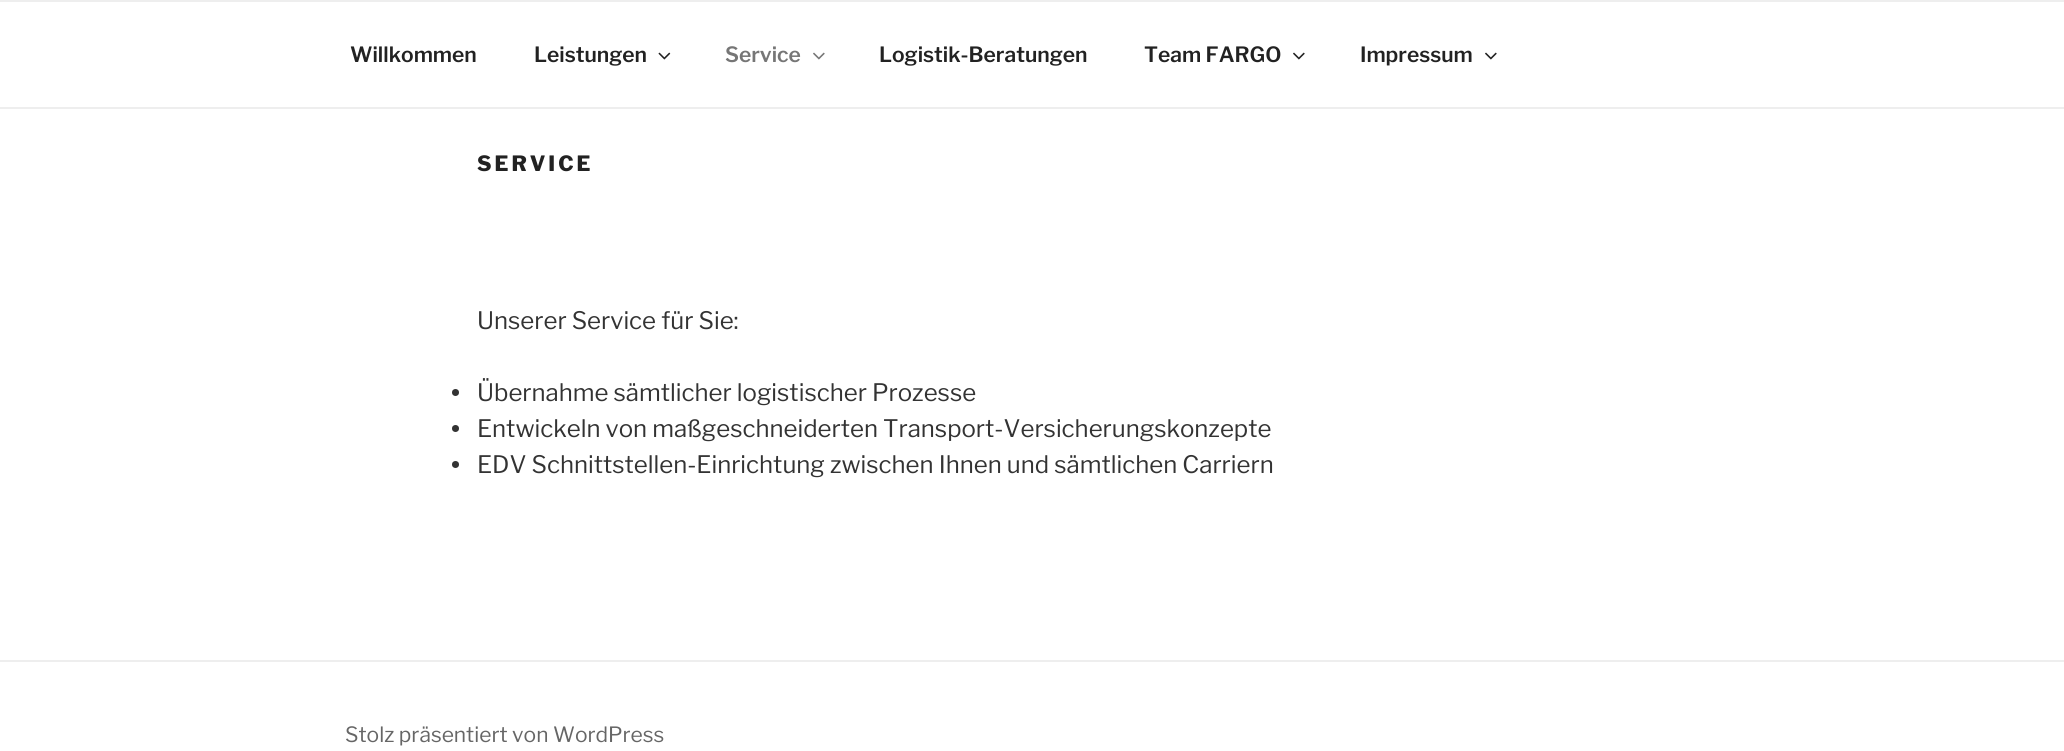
#include <cairo.h>
#include <math.h>
#include <stddef.h>

typedef struct { const char *family; double size; int italic, bold; unsigned color; } style_t;
static cairo_t *ctx;

static void ink(unsigned color) {
    cairo_set_source_rgb(ctx, (color >> 16) / 255.0, (color >> 8 & 255) / 255.0, (color & 255) / 255.0);
}

static void write(double x, double y, const char *s, const style_t *st) {
    cairo_select_font_face(ctx, st->family, st->italic ? CAIRO_FONT_SLANT_ITALIC : CAIRO_FONT_SLANT_NORMAL,
        st->bold ? CAIRO_FONT_WEIGHT_BOLD : CAIRO_FONT_WEIGHT_NORMAL);
    cairo_set_font_size(ctx, st->size);
    ink(st->color);
    cairo_move_to(ctx, x, y);
    cairo_show_text(ctx, s);
}

static void write_spaced(double x, double y, const char *s, double letter, double word) {
    cairo_move_to(ctx, x, y);
    while (*s) {
        char ch[5] = {0};
        int n = 0;
        do ch[n++] = *s++; while ((*s & 0xC0) == 0x80);
        cairo_show_text(ctx, ch);
        cairo_rel_move_to(ctx, letter + word * (*ch == ' '), 0);
    }
}

static void block(double x, double y, double w, double h, unsigned color) {
    ink(color);
    cairo_rectangle(ctx, x, y, w, h);
    cairo_fill(ctx);
}

static void paste(const char *path, double x, double y, double w, double h) {
    cairo_surface_t *image = cairo_image_surface_create_from_png(path);
    cairo_save(ctx);
    cairo_set_source_surface(ctx, image, x, y);
    cairo_rectangle(ctx, x, y, w, h);
    cairo_fill(ctx);
    cairo_restore(ctx);
    cairo_surface_destroy(image);
}

static const style_t s1 = {"Libre Franklin SemiBold", 21, 0, 0, 0x222222};
static const style_t s2 = {"Libre Franklin SemiBold", 21, 0, 0, 0x767676};
static const style_t s3 = {"Libre Franklin", 24, 0, 0, 0x333333};
static const style_t s4 = {"Libre Franklin", 21, 0, 0, 0x666666};

int main(void) {
    cairo_surface_t *surface = cairo_image_surface_create(CAIRO_FORMAT_RGB24, 2064, 751);
    ctx = cairo_create(surface);
    cairo_font_options_t *options = cairo_font_options_create();
    cairo_font_options_set_hint_metrics(options, CAIRO_HINT_METRICS_OFF);
    cairo_font_options_set_hint_style(options, CAIRO_HINT_STYLE_NONE);
    cairo_set_font_options(ctx, options);
    cairo_set_miter_limit(ctx, 4);
    ink(0xffffff);
    cairo_paint(ctx);
    block(0, 0, 2064, 2, 0xeeeeee);
    block(0, 107, 2064, 2, 0xeeeeee);
    write(350, 62, "Willkommen", &s1);
    write(534, 62, "Leistungen", &s1);
    paste("pic1.png", 658, 52, 13, 8);
    write(725, 62, "Service", &s2);
    paste("pic2.png", 813, 52, 12, 8);
    write(879, 62, "Logistik-Beratungen", &s1);
    write(1144, 62, "Team FARGO", &s1);
    paste("pic3.png", 1293, 52, 12, 8);
    write(1360, 62, "Impressum", &s1);
    paste("pic3.png", 1485, 52, 12, 8);
    cairo_select_font_face(ctx, "Libre Franklin ExtraBold", CAIRO_FONT_SLANT_NORMAL, CAIRO_FONT_WEIGHT_NORMAL);
    write_spaced(477, 171, "SERVICE", 3, 0);
    write(477, 329, "Unserer Service für Sie:", &s3);
    cairo_new_path(ctx);
    cairo_arc(ctx, 455.5, 392.5, 3.5, 0, 2 * M_PI);
    cairo_fill(ctx);
    write(477, 401, "Übernahme sämtlicher logistischer Prozesse", &s3);
    cairo_new_path(ctx);
    cairo_arc(ctx, 455.5, 428.5, 3.5, 0, 2 * M_PI);
    cairo_fill(ctx);
    write(477, 437, "Entwickeln von maßgeschneiderten Transport-Versicherungskonzepte", &s3);
    cairo_new_path(ctx);
    cairo_arc(ctx, 455.5, 464.5, 3.5, 0, 2 * M_PI);
    cairo_fill(ctx);
    write(477, 473, "EDV Schnittstellen-Einrichtung zwischen Ihnen und sämtlichen Carriern", &s3);
    block(0, 660, 2064, 2, 0xeeeeee);
    write(345, 742, "Stolz präsentiert von WordPress", &s4);
    cairo_surface_write_to_png(surface, "screenshot.png");
    cairo_font_options_destroy(options);
    cairo_destroy(ctx);
    cairo_surface_destroy(surface);
    return 0;
}
